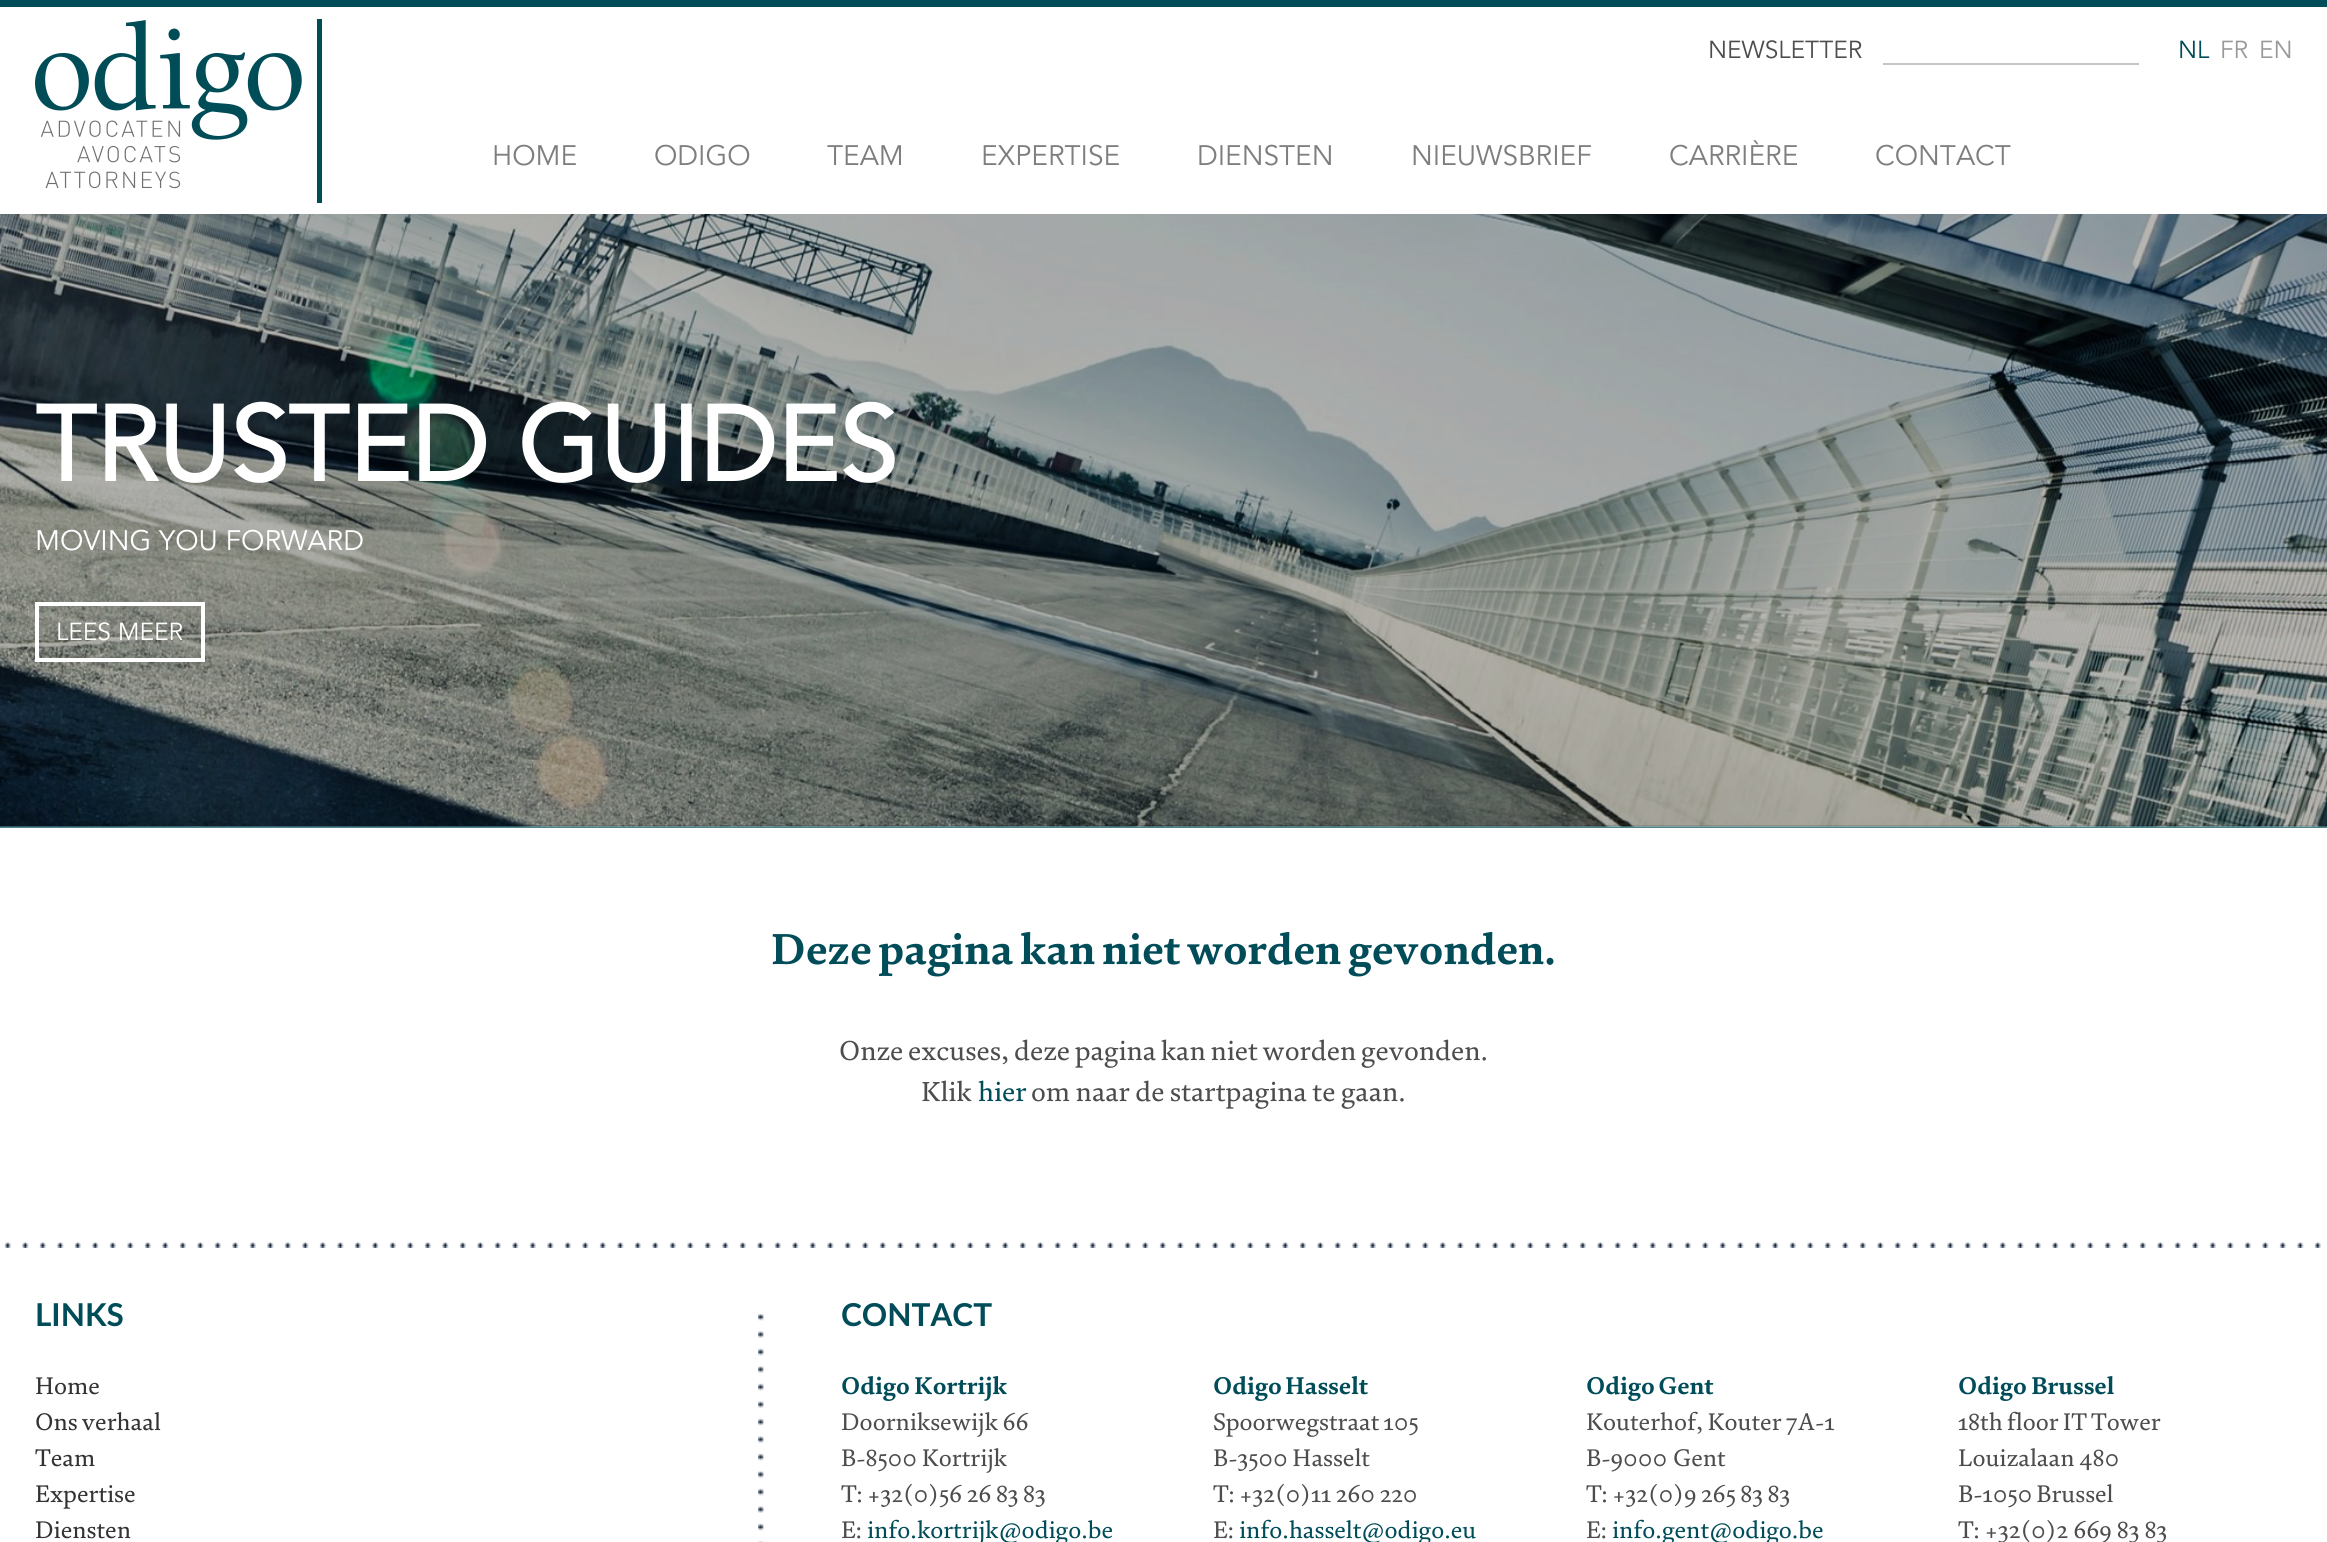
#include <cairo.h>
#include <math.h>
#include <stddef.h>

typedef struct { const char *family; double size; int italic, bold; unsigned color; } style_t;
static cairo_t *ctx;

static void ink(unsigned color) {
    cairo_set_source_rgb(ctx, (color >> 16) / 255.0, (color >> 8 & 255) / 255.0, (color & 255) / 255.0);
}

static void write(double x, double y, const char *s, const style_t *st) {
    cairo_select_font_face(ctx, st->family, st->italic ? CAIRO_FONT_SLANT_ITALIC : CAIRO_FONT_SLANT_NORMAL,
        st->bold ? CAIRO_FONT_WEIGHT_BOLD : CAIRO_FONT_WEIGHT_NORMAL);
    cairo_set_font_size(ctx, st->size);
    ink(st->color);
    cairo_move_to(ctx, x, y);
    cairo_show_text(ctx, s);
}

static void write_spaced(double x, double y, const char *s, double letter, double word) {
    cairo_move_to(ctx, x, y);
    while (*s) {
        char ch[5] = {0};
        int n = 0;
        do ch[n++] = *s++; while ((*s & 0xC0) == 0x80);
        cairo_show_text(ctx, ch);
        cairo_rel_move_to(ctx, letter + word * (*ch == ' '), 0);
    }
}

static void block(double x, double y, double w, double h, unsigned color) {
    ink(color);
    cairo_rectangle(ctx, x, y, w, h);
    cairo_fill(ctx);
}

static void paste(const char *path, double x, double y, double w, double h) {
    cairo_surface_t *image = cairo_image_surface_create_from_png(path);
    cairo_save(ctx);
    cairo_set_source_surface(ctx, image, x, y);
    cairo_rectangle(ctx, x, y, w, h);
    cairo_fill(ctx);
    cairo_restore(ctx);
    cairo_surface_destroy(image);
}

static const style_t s1 = {"Avenir", 24.5, 0, 0, 0x4d4d4d};
static const style_t s2 = {"Avenir", 24.5, 0, 0, 0x004c58};
static const style_t s3 = {"Avenir", 24.5, 0, 0, 0x999999};
static const style_t s4 = {"Avenir", 28, 0, 0, 0x7e7e7e};
static const style_t s5 = {"Avenir", 105, 0, 1, 0xffffff};
static const style_t s6 = {"Avenir", 28, 0, 0, 0xffffff};
static const style_t s7 = {"Avenir", 24.5, 0, 0, 0xffffff};
static const style_t s8 = {"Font", 28, 0, 0, 0x4d4d4d};
static const style_t s9 = {"Font", 28, 0, 0, 0x004c58};
static const style_t s10 = {"Lato", 31.5, 0, 1, 0x004c58};
static const style_t s11 = {"Font", 24.5, 0, 0, 0x333333};
static const style_t s12 = {"Font", 24.5, 0, 1, 0x004c58};
static const style_t s13 = {"Font", 24.5, 0, 0, 0x4d4d4d};
static const style_t s14 = {"Font", 24.5, 0, 0, 0x004c58};

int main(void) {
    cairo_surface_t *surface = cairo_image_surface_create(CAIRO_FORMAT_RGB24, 2327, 1542);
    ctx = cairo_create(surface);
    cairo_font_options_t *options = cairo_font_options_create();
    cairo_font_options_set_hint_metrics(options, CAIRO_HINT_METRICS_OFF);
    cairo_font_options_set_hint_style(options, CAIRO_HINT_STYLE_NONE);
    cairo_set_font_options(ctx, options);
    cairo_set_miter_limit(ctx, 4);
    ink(0xffffff);
    cairo_paint(ctx);
    block(0, 0, 2327, 7, 0x004c58);
    paste("pic1.png", 35, 19, 287, 184);
    write(1708, 58, "NEWSLETTER", &s1);
    block(1883, 63, 256, 2, 0xc5c5c5);
    write(2178, 58, "NL", &s2);
    write(2220, 58, "FR", &s3);
    write(2259, 58, "EN", &s3);
    write(492, 165, "HOME", &s4);
    write(654, 165, "ODIGO", &s4);
    write(827, 165, "TEAM", &s4);
    write(981, 165, "EXPERTISE", &s4);
    write(1197, 165, "DIENSTEN", &s4);
    write(1411, 165, "NIEUWSBRIEF", &s4);
    write(1669, 165, "CARRIÈRE", &s4);
    write(1875, 165, "CONTACT", &s4);
    block(0, 826, 2327, 2, 0x4d828a);
    block(0, 214, 2327, 612, 0x000000);
    paste("pic2.png", 0, 214, 2327, 613);
    write(35, 481, "TRUSTED GUIDES", &s5);
    write(35, 550, "MOVING YOU FORWARD", &s6);
    cairo_rectangle(ctx, 37, 604, 166, 56);
    cairo_set_line_width(ctx, 4);
    cairo_stroke(ctx);
    write(56, 640, "LEES MEER", &s7);
    cairo_select_font_face(ctx, "Font", CAIRO_FONT_SLANT_NORMAL, CAIRO_FONT_WEIGHT_BOLD);
    cairo_set_font_size(ctx, 43.75);
    ink(0x004c58);
    write_spaced(771, 964, "Deze pagina kan niet worden gevonden.", 0, -1.5);
    cairo_select_font_face(ctx, "Font", CAIRO_FONT_SLANT_NORMAL, CAIRO_FONT_WEIGHT_NORMAL);
    cairo_set_font_size(ctx, 28);
    ink(0x4d4d4d);
    write_spaced(839, 1060, "Onze excuses, deze pagina kan niet worden gevonden.", 0, -1.75);
    write(921, 1101, "Klik", &s8);
    write(978, 1101, "hier", &s9);
    ink(0x4d4d4d);
    write_spaced(1031, 1101, "om naar de startpagina te gaan.", 0, -1);
    paste("pic3.png", 4, 1242, 2317, 6);
    write(35, 1326, "LINKS", &s10);
    paste("pic4.png", 758, 1313, 6, 229);
    write(35, 1394, "Home", &s11);
    write_spaced(35, 1430, "Ons verhaal", 0, -1.5);
    write(35, 1466, "Team", &s11);
    write(35, 1502, "Expertise", &s11);
    write(35, 1538, "Diensten", &s11);
    paste("pic5.png", 758, 1314, 6, 216);
    write(841, 1326, "CONTACT", &s10);
    write(841, 1394, "Odigo Kortrijk", &s12);
    cairo_select_font_face(ctx, "Font", CAIRO_FONT_SLANT_NORMAL, CAIRO_FONT_WEIGHT_NORMAL);
    ink(0x4d4d4d);
    write_spaced(841, 1430, "Doorniksewijk 66", 0, -1);
    write_spaced(841, 1466, "B-8500 Kortrijk", 0, -1);
    write_spaced(841, 1502, "T: +32(0)56 26 83 83", 0, -1);
    write(841, 1538, "E:", &s13);
    write(867, 1538, "info.kortrijk@odigo.be", &s14);
    cairo_select_font_face(ctx, "Font", CAIRO_FONT_SLANT_NORMAL, CAIRO_FONT_WEIGHT_BOLD);
    write_spaced(1213, 1394, "Odigo Hasselt", 0, -1);
    cairo_select_font_face(ctx, "Font", CAIRO_FONT_SLANT_NORMAL, CAIRO_FONT_WEIGHT_NORMAL);
    ink(0x4d4d4d);
    write_spaced(1213, 1430, "Spoorwegstraat 105", 0, -1.5);
    write_spaced(1213, 1466, "B-3500 Hasselt", 0, -1);
    write_spaced(1213, 1502, "T: +32(0)11 260 220", 0, -1);
    write(1213, 1538, "E:", &s13);
    write(1239, 1538, "info.hasselt@odigo.eu", &s14);
    cairo_select_font_face(ctx, "Font", CAIRO_FONT_SLANT_NORMAL, CAIRO_FONT_WEIGHT_BOLD);
    write_spaced(1586, 1394, "Odigo Gent", 0, -1);
    cairo_select_font_face(ctx, "Font", CAIRO_FONT_SLANT_NORMAL, CAIRO_FONT_WEIGHT_NORMAL);
    ink(0x4d4d4d);
    write_spaced(1586, 1430, "Kouterhof, Kouter 7A-1", 0, -1.5);
    write(1586, 1466, "B-9000 Gent", &s13);
    write_spaced(1586, 1502, "T: +32(0)9 265 83 83", 0, -1);
    write(1586, 1538, "E:", &s13);
    write(1612, 1538, "info.gent@odigo.be", &s14);
    write(1958, 1394, "Odigo Brussel", &s12);
    cairo_select_font_face(ctx, "Font", CAIRO_FONT_SLANT_NORMAL, CAIRO_FONT_WEIGHT_NORMAL);
    ink(0x4d4d4d);
    write_spaced(1958, 1430, "18th floor IT Tower", 0, -1.5);
    write_spaced(1958, 1466, "Louizalaan 480", 0, -1);
    write_spaced(1958, 1502, "B-1050 Brussel", 0, -1.5);
    write_spaced(1958, 1538, "T: +32(0)2 669 83 83", 0, -0.5);
    cairo_surface_write_to_png(surface, "screenshot.png");
    cairo_font_options_destroy(options);
    cairo_destroy(ctx);
    cairo_surface_destroy(surface);
    return 0;
}
